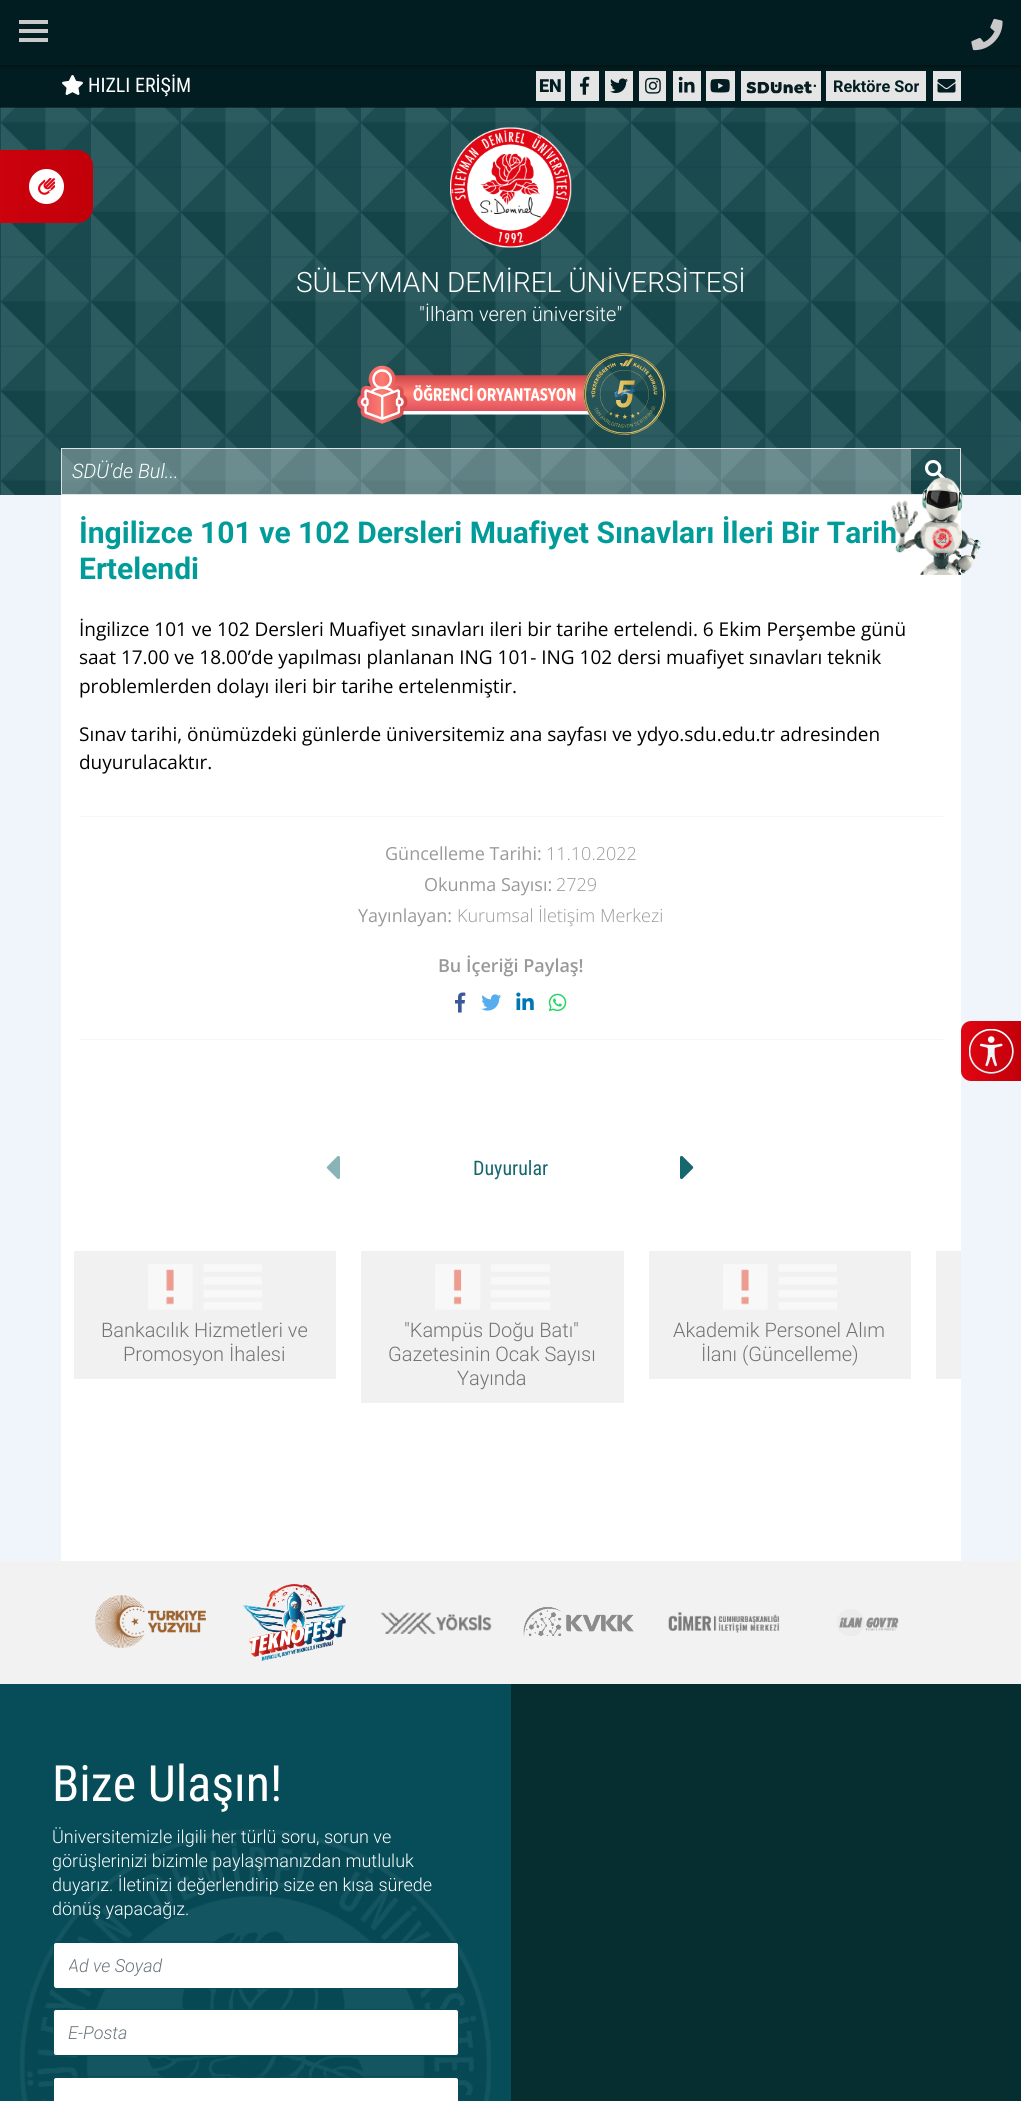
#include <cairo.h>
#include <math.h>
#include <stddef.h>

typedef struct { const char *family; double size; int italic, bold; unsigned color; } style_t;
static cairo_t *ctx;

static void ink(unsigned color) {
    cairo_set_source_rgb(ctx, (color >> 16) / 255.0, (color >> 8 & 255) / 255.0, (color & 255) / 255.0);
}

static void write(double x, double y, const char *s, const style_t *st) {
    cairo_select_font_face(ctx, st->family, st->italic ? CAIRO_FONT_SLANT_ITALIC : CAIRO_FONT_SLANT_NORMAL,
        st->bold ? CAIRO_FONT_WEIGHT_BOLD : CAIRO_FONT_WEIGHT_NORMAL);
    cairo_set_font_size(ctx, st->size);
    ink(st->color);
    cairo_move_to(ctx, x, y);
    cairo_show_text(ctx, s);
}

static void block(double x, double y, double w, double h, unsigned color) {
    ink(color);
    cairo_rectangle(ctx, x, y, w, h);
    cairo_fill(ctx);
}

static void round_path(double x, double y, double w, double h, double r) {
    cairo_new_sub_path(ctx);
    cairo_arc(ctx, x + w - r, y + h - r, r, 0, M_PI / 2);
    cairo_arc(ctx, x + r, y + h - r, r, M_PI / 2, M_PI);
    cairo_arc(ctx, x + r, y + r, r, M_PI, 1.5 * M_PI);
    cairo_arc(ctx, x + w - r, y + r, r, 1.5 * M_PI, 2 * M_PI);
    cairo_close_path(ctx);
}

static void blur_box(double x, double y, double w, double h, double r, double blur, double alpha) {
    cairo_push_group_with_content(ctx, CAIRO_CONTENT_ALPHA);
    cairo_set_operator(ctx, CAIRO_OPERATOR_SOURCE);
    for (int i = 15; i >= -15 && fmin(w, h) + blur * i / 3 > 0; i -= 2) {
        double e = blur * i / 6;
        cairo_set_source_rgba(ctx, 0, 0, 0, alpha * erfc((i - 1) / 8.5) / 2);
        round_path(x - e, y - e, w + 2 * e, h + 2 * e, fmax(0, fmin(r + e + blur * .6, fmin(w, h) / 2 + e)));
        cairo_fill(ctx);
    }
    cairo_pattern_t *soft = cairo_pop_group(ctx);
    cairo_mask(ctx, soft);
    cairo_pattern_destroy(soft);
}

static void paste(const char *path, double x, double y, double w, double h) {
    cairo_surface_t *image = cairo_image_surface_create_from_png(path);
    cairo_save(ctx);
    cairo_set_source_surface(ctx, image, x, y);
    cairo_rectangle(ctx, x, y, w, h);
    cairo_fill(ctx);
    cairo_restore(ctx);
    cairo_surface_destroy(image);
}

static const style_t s1 = {"Roboto Condensed", 20, 0, 0, 0xffffff};
static const style_t s2 = {"Roboto Black", 18, 0, 0, 0x021d21};
static const style_t s3 = {"Roboto", 16.25, 0, 1, 0x021d21};
static const style_t s4 = {"Roboto Light", 28, 0, 0, 0xffffff};
static const style_t s5 = {"Roboto Light", 20, 0, 0, 0xffffff};
static const style_t s6 = {"Roboto Light", 20, 1, 0, 0xffffff};
static const style_t s7 = {"Roboto", 30, 0, 1, 0x019c99};
static const style_t s8 = {"Open Sans", 19, 0, 0, 0x000000};
static const style_t s9 = {"Open Sans", 18, 0, 0, 0x999999};
static const style_t s10 = {"Open Sans Light", 18, 0, 0, 0x999999};
static const style_t s11 = {"Open Sans SemiBold", 18, 0, 0, 0x999999};
static const style_t s12 = {"Roboto Condensed", 20, 0, 0, 0x16676f};
static const style_t s13 = {"Roboto Light", 20, 0, 0, 0x737373};
static const style_t s14 = {"Roboto Condensed", 50, 0, 0, 0xffffff};
static const style_t s15 = {"Roboto Light", 18, 0, 0, 0xffffff};
static const style_t s16 = {"Roboto Light", 18, 1, 0, 0x6c757d};

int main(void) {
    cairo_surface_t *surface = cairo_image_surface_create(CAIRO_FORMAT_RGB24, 1021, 2101);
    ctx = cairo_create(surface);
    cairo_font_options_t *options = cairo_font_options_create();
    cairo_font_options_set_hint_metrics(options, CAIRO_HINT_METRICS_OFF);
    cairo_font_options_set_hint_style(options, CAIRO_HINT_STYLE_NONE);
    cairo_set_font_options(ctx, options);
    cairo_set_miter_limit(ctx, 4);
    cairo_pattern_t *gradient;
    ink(0xeff5fb);
    cairo_paint(ctx);
    block(0, 65, 1021, 43, 0x021d21);
    block(536, 71, 29, 30, 0xe5e5e5);
    block(571, 71, 28, 30, 0xe5e5e5);
    block(605, 71, 28, 30, 0xe5e5e5);
    block(639, 71, 27, 30, 0xe5e5e5);
    block(673, 71, 28, 30, 0xe5e5e5);
    block(706, 71, 29, 30, 0xe5e5e5);
    block(741, 71, 80, 30, 0xe5e5e5);
    block(826, 71, 100, 30, 0xe5e5e5);
    block(933, 71, 28, 30, 0xe5e5e5);
    ink(0x000000);
    blur_box(0, 1, 1021, 65, 0, 2.5, 0.5);
    block(0, 0, 1021, 65, 0x021d21);
    block(19, 29, 29, 4, 0xc9c9c9);
    block(19, 20, 29, 4, 0xc9c9c9);
    block(19, 38, 29, 4, 0xc9c9c9);
    paste("pic1.png", 971, 18, 32, 33);
    block(0, 108, 1021, 387, 0x043e44);
    paste("pic11.png", 0, 107, 1021, 388);
    gradient = cairo_pattern_create_linear(-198, 184, 93, 188);
    cairo_pattern_add_color_stop_rgba(gradient, 0, 0.882, 0.024, 0.075, 1);
    cairo_pattern_add_color_stop_rgba(gradient, 0.99, 0.761, 0, 0.039, 1);
    cairo_set_source(ctx, gradient);
    cairo_pattern_destroy(gradient);
    round_path(-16, 150, 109, 73, 16);
    cairo_fill(ctx);
    ink(0xffffff);
    cairo_arc(ctx, 46.5, 186.5, 17.5, 0, 2 * M_PI);
    cairo_fill(ctx);
    paste("pic2.png", 38, 178, 17, 17);
    paste("pic3.png", 62, 75, 21, 20);
    write(88, 92, "HIZLI ERİŞİM", &s1);
    write(539, 92, "EN", &s2);
    paste("pic4.png", 580, 76, 10, 19);
    paste("pic5.png", 610, 78, 18, 16);
    paste("pic6.png", 645, 77, 16, 17);
    paste("pic7.png", 678, 76, 17, 17);
    paste("pic8.png", 710, 79, 20, 14);
    paste("pic9.png", 746, 81, 70, 13);
    write(833, 92, "Rektöre Sor", &s3);
    paste("pic10.png", 937, 79, 19, 14);
    paste("pic12.png", 450, 127, 122, 121);
    write(296, 292, "SÜLEYMAN DEMİREL ÜNİVERSİTESİ", &s4);
    write(419, 321, "\"İlham veren üniversite\"", &s5);
    paste("pic13.png", 357, 353, 309, 82);
    cairo_set_source_rgba(ctx, 1, 1, 1, 0.3);
    cairo_rectangle(ctx, 62, 449, 849, 45);
    cairo_fill(ctx);
    block(61, 448, 900, 1, 0xdee2e6);
    block(61, 494, 863, 1, 0xdee2e6);
    block(61, 448, 1, 47, 0xdee2e6);
    write(72, 478, "SDÜ'de Bul...", &s6);
    block(960, 448, 1, 47, 0xdee2e6);
    paste("pic14.png", 925, 460, 20, 19);
    block(61, 495, 900, 1066, 0xffffff);
    write(79, 543, "İngilizce 101 ve 102 Dersleri Muafiyet Sınavları İleri Bir Tarih", &s7);
    write(79, 579, "Ertelendi", &s7);
    write(79, 636, "İngilizce 101 ve 102 Dersleri Muafiyet sınavları ileri bir tarihe ertelendi. 6 Ekim Perşembe günü", &s8);
    write(79, 664, "saat 17.00 ve 18.00’de yapılması planlanan ING 101- ING 102 dersi muafiyet sınavları teknik", &s8);
    write(79, 693, "problemlerden dolayı ileri bir tarihe ertelenmiştir.", &s8);
    write(79, 741, "Sınav tarihi, önümüzdeki günlerde üniversitemiz ana sayfası ve ydyo.sdu.edu.tr adresinden", &s8);
    write(79, 769, "duyurulacaktır.", &s8);
    block(80, 816, 863, 1, 0xf6f6f6);
    block(80, 1039, 863, 1, 0xf6f6f6);
    write(385, 860, "Güncelleme Tarihi:", &s9);
    write(546, 860, "11.10.2022", &s10);
    write(424, 891, "Okunma Sayısı:", &s9);
    write(556, 891, "2729", &s10);
    write(358, 922, "Yayınlayan:", &s9);
    write(457, 922, "Kurumsal İletişim Merkezi", &s10);
    write(438, 972, "Bu İçeriği Paylaş!", &s11);
    paste("pic15.png", 455, 992, 11, 21);
    paste("pic16.png", 481, 994, 21, 17);
    paste("pic17.png", 516, 992, 18, 18);
    paste("pic18.png", 548, 993, 19, 19);
    paste("pic19.png", 326, 1155, 14, 25);
    write(473, 1175, "Duyurular", &s12);
    paste("pic20.png", 680, 1155, 14, 25);
    block(74, 1251, 262, 128, 0xf1f1f1);
    paste("pic21.png", 148, 1264, 114, 46);
    write(101, 1337, "Bankacılık Hizmetleri ve", &s13);
    write(123, 1361, "Promosyon İhalesi", &s13);
    block(361, 1251, 263, 152, 0xf1f1f1);
    paste("pic22.png", 435, 1264, 115, 46);
    write(404, 1337, "\"Kampüs Doğu Batı\"", &s13);
    write(388, 1361, "Gazetesinin Ocak Sayısı", &s13);
    write(457, 1385, "Yayında", &s13);
    block(649, 1251, 262, 128, 0xf1f1f1);
    paste("pic21.png", 723, 1264, 114, 46);
    write(673, 1337, "Akademik Personel Alım", &s13);
    write(701, 1361, "İlanı (Güncelleme)", &s13);
    block(936, 1251, 25, 128, 0xf1f1f1);
    paste("pic23.png", 890, 477, 91, 98);
    gradient = cairo_pattern_create_linear(959, 1051, 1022, 1052);
    cairo_pattern_add_color_stop_rgba(gradient, 0, 0.882, 0.024, 0.075, 1);
    cairo_pattern_add_color_stop_rgba(gradient, 0.99, 0.761, 0, 0.039, 1);
    cairo_set_source(ctx, gradient);
    cairo_pattern_destroy(gradient);
    cairo_new_path(ctx);
    cairo_move_to(ctx, 971, 1021);
    cairo_line_to(ctx, 1021, 1021);
    cairo_line_to(ctx, 1021, 1081);
    cairo_line_to(ctx, 971, 1081);
    cairo_curve_to(ctx, 965.5, 1081, 961, 1076.5, 961, 1071);
    cairo_line_to(ctx, 961, 1031);
    cairo_curve_to(ctx, 961, 1025.5, 965.5, 1021, 971, 1021);
    cairo_close_path(ctx);
    cairo_fill(ctx);
    paste("pic24.png", 969, 1029, 45, 45);
    block(0, 1561, 1021, 123, 0xf2f2f2);
    paste("pic25.png", 95, 1595, 111, 54);
    paste("pic26.png", 243, 1584, 103, 77);
    paste("pic27.png", 380, 1612, 112, 22);
    paste("pic28.png", 523, 1607, 111, 30);
    paste("pic29.png", 668, 1612, 112, 21);
    paste("pic30.png", 837, 1609, 62, 27);
    block(0, 1684, 511, 417, 0x064d59);
    paste("pic31.png", 20, 1829, 471, 272);
    write(52, 1801, "Bize Ulaşın!", &s14);
    write(52, 1843, "Üniversitemizle ilgili her türlü soru, sorun ve", &s15);
    write(52, 1867, "görüşlerinizi bizimle paylaşmanızdan mutluluk", &s15);
    write(52, 1891, "duyarız. İletinizi değerlendirip size en kısa sürede", &s15);
    write(52, 1915, "dönüş yapacağız.", &s15);
    round_path(54, 1943, 404, 45, 2);
    cairo_fill(ctx);
    round_path(53.5, 1941.5, 405, 47, 2.5);
    ink(0x064d59);
    cairo_set_line_width(ctx, 1);
    cairo_stroke(ctx);
    cairo_save(ctx);
    cairo_rectangle(ctx, 69, 1956, 374, 22);
    cairo_clip(ctx);
    write(68, 1972, "Ad ve Soyad", &s16);
    cairo_restore(ctx);
    ink(0xffffff);
    round_path(53.5, 2009.5, 405, 46, 2.5);
    cairo_fill_preserve(ctx);
    ink(0x064d59);
    cairo_stroke(ctx);
    write(68, 2039, "E-Posta", &s16);
    ink(0xffffff);
    round_path(54, 2078, 404, 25, 2);
    cairo_fill(ctx);
    round_path(53.5, 2076.5, 405, 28, 2.5);
    ink(0x064d59);
    cairo_stroke(ctx);
    block(511, 1684, 510, 417, 0x062d30);
    cairo_surface_write_to_png(surface, "screenshot.png");
    cairo_font_options_destroy(options);
    cairo_destroy(ctx);
    cairo_surface_destroy(surface);
    return 0;
}
